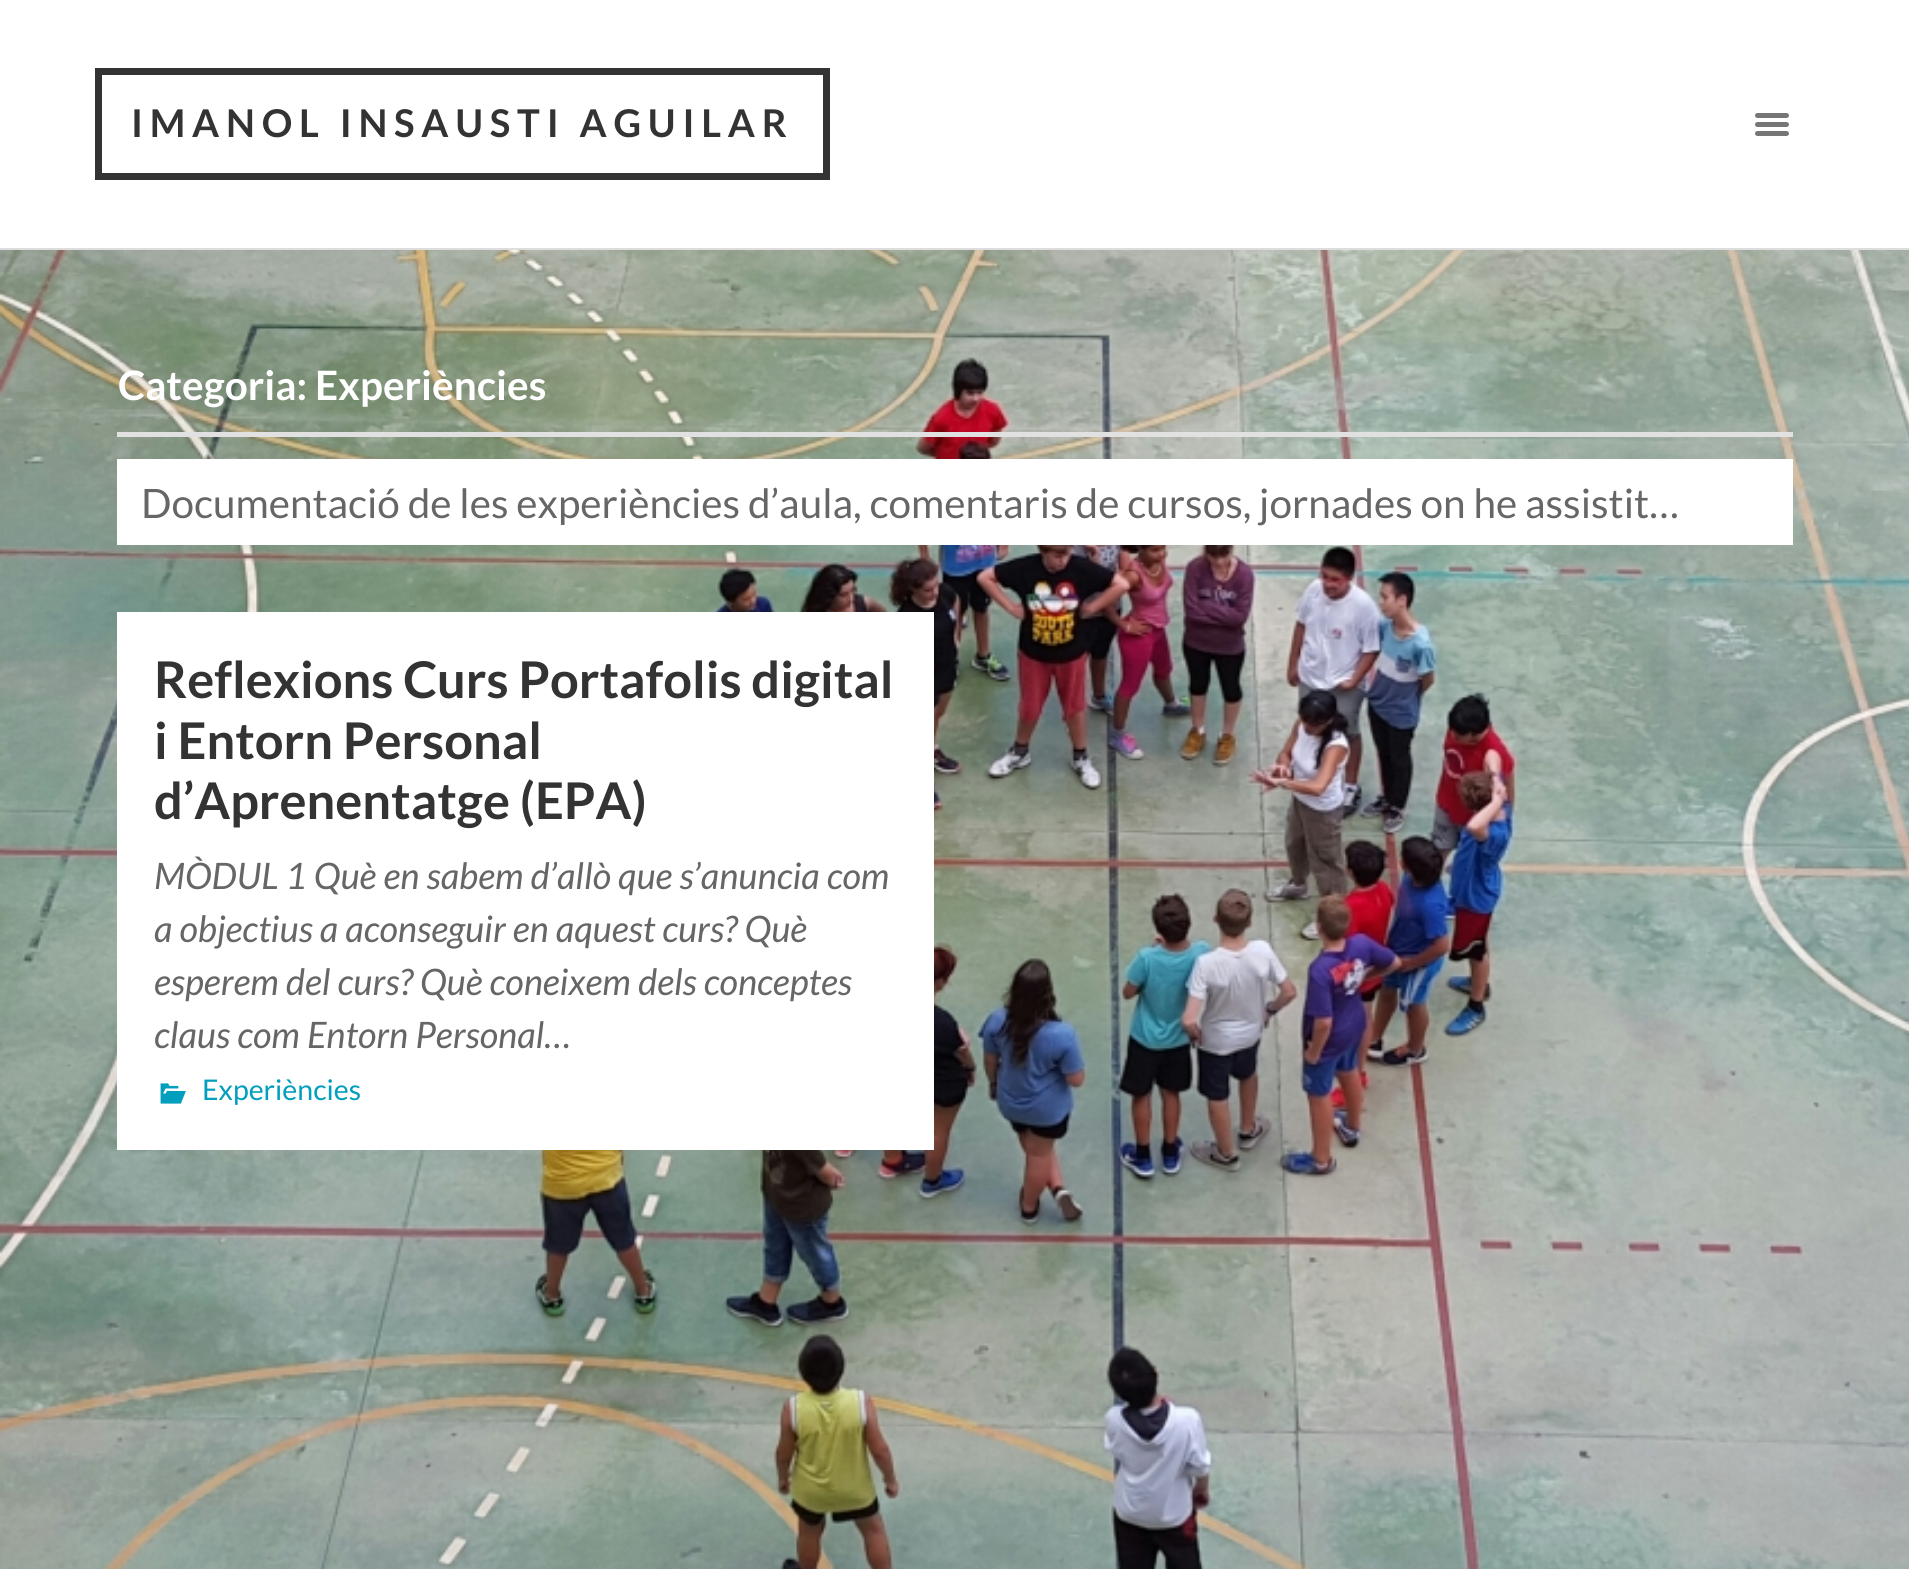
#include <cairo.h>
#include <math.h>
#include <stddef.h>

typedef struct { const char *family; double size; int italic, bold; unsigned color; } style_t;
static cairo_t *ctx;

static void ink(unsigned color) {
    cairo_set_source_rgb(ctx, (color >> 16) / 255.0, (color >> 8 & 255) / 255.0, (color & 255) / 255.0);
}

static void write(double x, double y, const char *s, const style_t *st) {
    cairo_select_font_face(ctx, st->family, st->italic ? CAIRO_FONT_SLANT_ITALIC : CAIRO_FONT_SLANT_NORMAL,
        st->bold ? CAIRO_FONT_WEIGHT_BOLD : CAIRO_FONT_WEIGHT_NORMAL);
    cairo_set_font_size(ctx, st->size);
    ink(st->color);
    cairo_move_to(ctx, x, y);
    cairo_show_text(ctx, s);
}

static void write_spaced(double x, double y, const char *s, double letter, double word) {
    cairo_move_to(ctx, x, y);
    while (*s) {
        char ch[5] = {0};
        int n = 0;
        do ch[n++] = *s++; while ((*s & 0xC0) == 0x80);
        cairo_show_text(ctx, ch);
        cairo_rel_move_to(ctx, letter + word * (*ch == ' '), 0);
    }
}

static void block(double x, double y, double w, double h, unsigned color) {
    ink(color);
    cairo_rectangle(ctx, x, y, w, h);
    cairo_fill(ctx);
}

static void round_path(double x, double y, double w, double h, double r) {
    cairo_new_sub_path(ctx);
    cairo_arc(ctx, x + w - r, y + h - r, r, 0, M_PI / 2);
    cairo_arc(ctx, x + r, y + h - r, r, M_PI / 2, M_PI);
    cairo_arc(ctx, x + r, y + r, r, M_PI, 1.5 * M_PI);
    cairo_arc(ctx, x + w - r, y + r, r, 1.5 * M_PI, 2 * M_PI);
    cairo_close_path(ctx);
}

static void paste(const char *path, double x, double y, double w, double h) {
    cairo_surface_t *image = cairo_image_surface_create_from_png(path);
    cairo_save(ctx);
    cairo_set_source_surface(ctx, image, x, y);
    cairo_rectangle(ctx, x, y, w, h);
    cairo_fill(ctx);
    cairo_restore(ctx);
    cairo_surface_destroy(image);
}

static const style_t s1 = {"Lato", 40.5, 0, 1, 0xffffff};
static const style_t s2 = {"Lato", 40.5, 0, 0, 0x666666};
static const style_t s3 = {"Lato", 50.6, 0, 1, 0x333333};
static const style_t s4 = {"Lato", 36.45, 1, 0, 0x666666};
static const style_t s5 = {"Lato", 28.5, 0, 0, 0x019ebd};

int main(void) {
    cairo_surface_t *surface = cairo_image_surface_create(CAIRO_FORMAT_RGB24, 1909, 1569);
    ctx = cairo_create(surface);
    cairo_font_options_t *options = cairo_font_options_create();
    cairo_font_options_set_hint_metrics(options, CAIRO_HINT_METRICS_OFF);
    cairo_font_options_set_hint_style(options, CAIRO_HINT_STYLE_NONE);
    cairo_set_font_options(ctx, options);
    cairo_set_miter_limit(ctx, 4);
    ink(0xffffff);
    cairo_paint(ctx);
    paste("pic1.png", 0, 250, 1909, 1319);
    block(0, 248, 1909, 2, 0xdddddd);
    cairo_rectangle(ctx, 98.5, 71.5, 728, 105);
    ink(0x333333);
    cairo_set_line_width(ctx, 7);
    cairo_stroke(ctx);
    cairo_select_font_face(ctx, "Lato", CAIRO_FONT_SLANT_NORMAL, CAIRO_FONT_WEIGHT_BOLD);
    cairo_set_font_size(ctx, 38.25);
    write_spaced(131, 137, "IMANOL INSAUSTI AGUILAR", 6.75, 0);
    ink(0x767676);
    round_path(1755, 113, 34, 5, 2.5);
    cairo_fill(ctx);
    round_path(1755, 122, 34, 5, 2.5);
    cairo_fill(ctx);
    round_path(1755, 131, 34, 5, 2.5);
    cairo_fill(ctx);
    block(117, 432, 1676, 5, 0xe1e1e1);
    write(118, 400, "Categoria: Experiències", &s1);
    block(117, 459, 1676, 86, 0xffffff);
    write(141, 518, "Documentació de les experiències d’aula, comentaris de cursos, jornades on he assistit…", &s2);
    block(117, 612, 817, 538, 0xffffff);
    write(154, 698, "Reflexions Curs Portafolis digital", &s3);
    write(154, 759, "i Entorn Personal", &s3);
    write(154, 819, "d’Aprenentatge (EPA)", &s3);
    write(154, 889, "MÒDUL 1 Què en sabem d’allò que s’anuncia com", &s4);
    write(154, 942, "a objectius a aconseguir en aquest curs? Què", &s4);
    write(154, 995, "esperem del curs? Què coneixem dels conceptes", &s4);
    write(154, 1048, "claus com Entorn Personal…", &s4);
    paste("pic2.png", 160, 1083, 26, 21);
    write(202, 1100, "Experiències", &s5);
    cairo_surface_write_to_png(surface, "screenshot.png");
    cairo_font_options_destroy(options);
    cairo_destroy(ctx);
    cairo_surface_destroy(surface);
    return 0;
}
